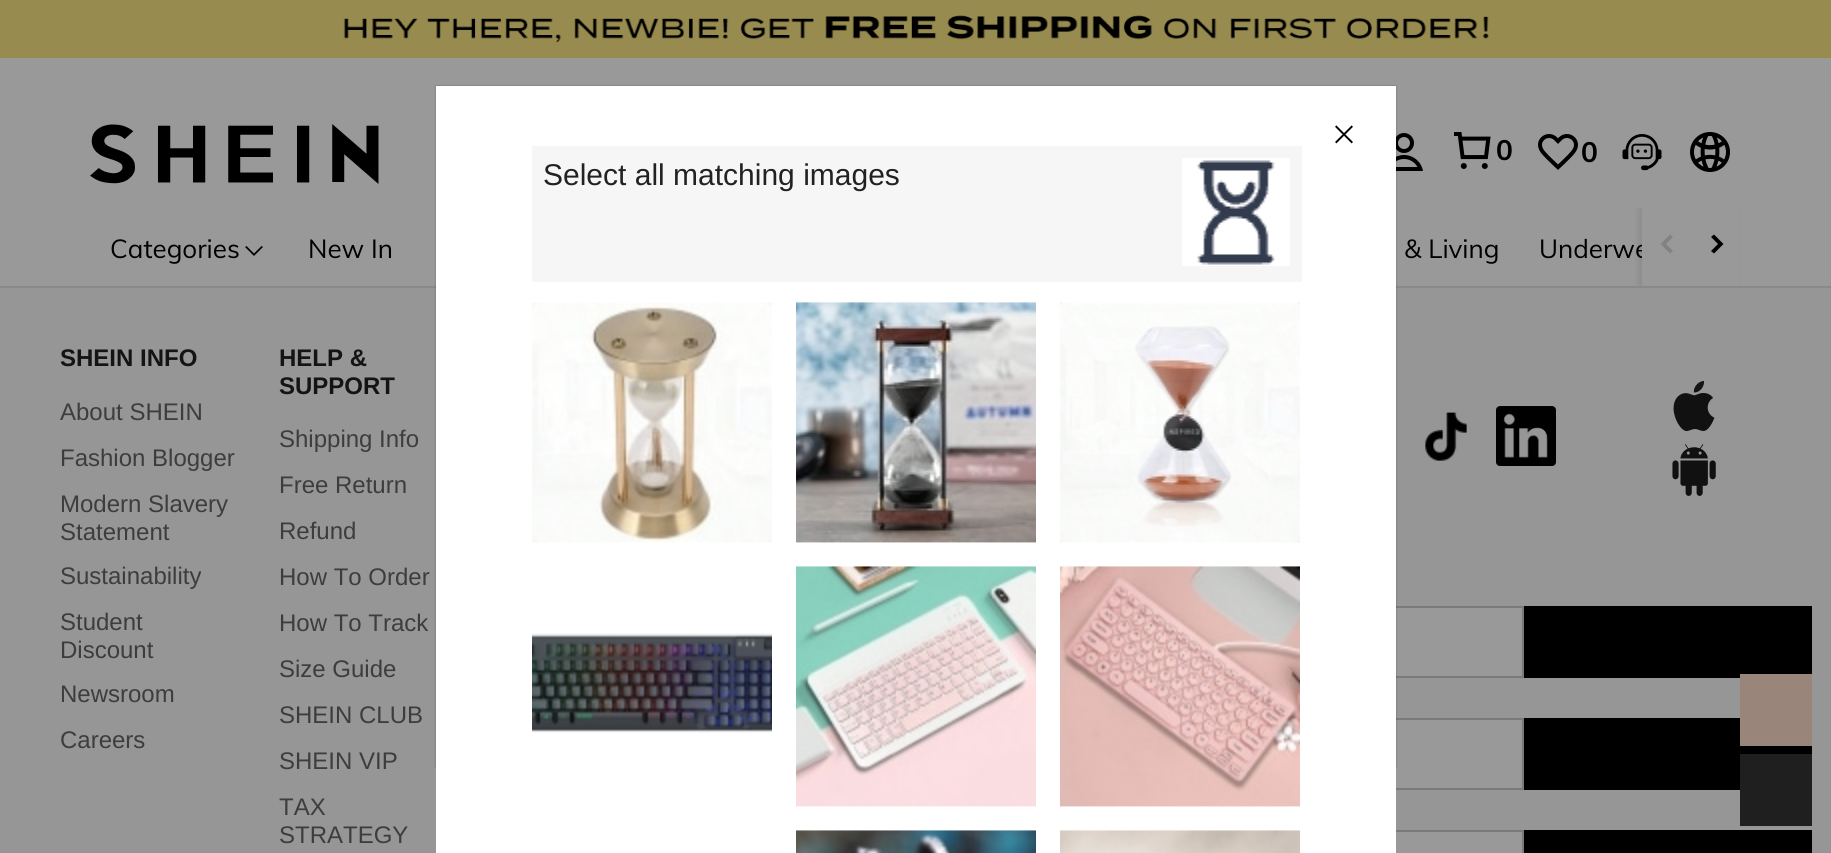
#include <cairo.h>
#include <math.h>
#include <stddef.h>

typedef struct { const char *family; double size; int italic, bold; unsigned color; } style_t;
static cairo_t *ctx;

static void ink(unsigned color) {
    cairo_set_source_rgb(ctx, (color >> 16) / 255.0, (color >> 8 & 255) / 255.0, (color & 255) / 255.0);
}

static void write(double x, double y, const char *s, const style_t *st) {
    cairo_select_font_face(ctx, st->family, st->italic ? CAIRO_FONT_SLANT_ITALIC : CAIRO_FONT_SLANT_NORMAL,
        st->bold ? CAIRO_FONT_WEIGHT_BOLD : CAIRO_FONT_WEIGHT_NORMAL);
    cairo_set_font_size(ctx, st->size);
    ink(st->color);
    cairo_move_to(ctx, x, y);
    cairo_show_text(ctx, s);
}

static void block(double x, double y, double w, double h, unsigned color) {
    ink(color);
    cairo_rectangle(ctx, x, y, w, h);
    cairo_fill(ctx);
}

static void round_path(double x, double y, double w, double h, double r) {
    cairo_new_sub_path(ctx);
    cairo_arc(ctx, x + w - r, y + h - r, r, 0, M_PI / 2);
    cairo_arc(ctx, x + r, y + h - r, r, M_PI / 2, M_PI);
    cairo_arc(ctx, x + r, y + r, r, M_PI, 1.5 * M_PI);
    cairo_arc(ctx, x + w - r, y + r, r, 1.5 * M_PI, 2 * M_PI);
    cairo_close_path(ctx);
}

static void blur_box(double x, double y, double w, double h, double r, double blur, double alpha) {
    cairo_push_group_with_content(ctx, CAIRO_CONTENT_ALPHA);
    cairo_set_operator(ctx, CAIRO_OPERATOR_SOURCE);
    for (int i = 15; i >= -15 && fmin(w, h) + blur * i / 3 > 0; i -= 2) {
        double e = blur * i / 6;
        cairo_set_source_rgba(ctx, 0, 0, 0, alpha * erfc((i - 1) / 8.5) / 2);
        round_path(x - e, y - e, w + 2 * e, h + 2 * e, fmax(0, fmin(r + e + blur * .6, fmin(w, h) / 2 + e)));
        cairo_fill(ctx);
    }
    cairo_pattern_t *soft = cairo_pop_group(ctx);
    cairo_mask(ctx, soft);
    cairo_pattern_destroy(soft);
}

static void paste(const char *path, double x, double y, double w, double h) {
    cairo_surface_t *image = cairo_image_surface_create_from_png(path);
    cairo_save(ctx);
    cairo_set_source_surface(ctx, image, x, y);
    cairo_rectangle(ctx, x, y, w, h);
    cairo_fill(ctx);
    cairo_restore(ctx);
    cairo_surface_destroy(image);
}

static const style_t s1 = {"Muli", 28, 0, 1, 0x000000};
static const style_t s2 = {"Muli", 26, 0, 0, 0x000000};
static const style_t s3 = {"Liberation Sans", 24, 0, 1, 0x141414};
static const style_t s4 = {"Liberation Sans", 24, 0, 0, 0x3d3d3d};
static const style_t s5 = {"Liberation Sans", 30, 0, 0, 0x222222};

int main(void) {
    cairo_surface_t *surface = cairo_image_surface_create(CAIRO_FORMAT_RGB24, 1831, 853);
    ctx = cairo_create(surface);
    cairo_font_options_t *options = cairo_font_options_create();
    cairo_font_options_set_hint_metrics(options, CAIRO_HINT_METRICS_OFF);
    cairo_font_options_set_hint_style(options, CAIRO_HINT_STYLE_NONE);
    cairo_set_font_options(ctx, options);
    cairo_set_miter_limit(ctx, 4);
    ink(0x999999);
    cairo_paint(ctx);
    paste("pic1.png", 0, 0, 1831, 58);
    paste("pic2.png", 90, 124, 289, 60);
    paste("pic3.png", 1396, 133, 27, 38);
    paste("pic4.png", 1454, 132, 37, 37);
    write(1496, 160, "0", &s1);
    paste("pic5.png", 1538, 134, 40, 36);
    write(1581, 162, "0", &s1);
    paste("pic6.png", 1622, 134, 40, 37);
    paste("pic7.png", 1690, 132, 40, 40);
    block(0, 286, 1831, 2, 0x898989);
    write(110, 258, "Categories", &s2);
    cairo_new_path(ctx);
    cairo_move_to(ctx, 261.5, 246);
    cairo_line_to(ctx, 263, 247);
    cairo_line_to(ctx, 254, 256);
    cairo_line_to(ctx, 245, 247);
    cairo_line_to(ctx, 246.5, 246);
    cairo_line_to(ctx, 254, 253.5);
    cairo_close_path(ctx);
    cairo_fill(ctx);
    write(308, 258, "New In", &s2);
    write(1404, 258, "& Living", &s2);
    write(1539, 258, "Underwe", &s2);
    block(0, 288, 1831, 565, 0x969696);
    cairo_save(ctx);
    cairo_rectangle(ctx, 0, 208, 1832, 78);
    cairo_clip(ctx);
    ink(0x000000);
    blur_box(1638, 208, 100, 78, 0, 3, 0.08);
    cairo_restore(ctx);
    block(1642, 208, 98, 78, 0x999999);
    ink(0x828282);
    cairo_set_fill_rule(ctx, CAIRO_FILL_RULE_EVEN_ODD);
    cairo_new_path(ctx);
    cairo_move_to(ctx, 1670, 234.5);
    cairo_line_to(ctx, 1673, 237);
    cairo_line_to(ctx, 1666, 244);
    cairo_line_to(ctx, 1673, 251);
    cairo_line_to(ctx, 1670, 253.5);
    cairo_line_to(ctx, 1660.5, 244);
    cairo_close_path(ctx);
    cairo_fill(ctx);
    ink(0x000000);
    cairo_new_path(ctx);
    cairo_move_to(ctx, 1711, 237);
    cairo_line_to(ctx, 1714, 234.5);
    cairo_line_to(ctx, 1723.5, 244);
    cairo_line_to(ctx, 1714, 253.5);
    cairo_line_to(ctx, 1711, 251);
    cairo_line_to(ctx, 1718, 244);
    cairo_close_path(ctx);
    cairo_fill(ctx);
    write(60, 366, "SHEIN INFO", &s3);
    write(60, 420, "About SHEIN", &s4);
    write(60, 466, "Fashion Blogger", &s4);
    write(60, 512, "Modern Slavery", &s4);
    write(60, 540, "Statement", &s4);
    write(60, 584, "Sustainability", &s4);
    write(60, 630, "Student", &s4);
    write(60, 658, "Discount", &s4);
    write(60, 702, "Newsroom", &s4);
    write(60, 748, "Careers", &s4);
    write(279, 366, "HELP &", &s3);
    write(279, 394, "SUPPORT", &s3);
    write(279, 447, "Shipping Info", &s4);
    write(279, 493, "Free Return", &s4);
    write(279, 539, "Refund", &s4);
    write(279, 585, "How To Order", &s4);
    write(279, 631, "How To Track", &s4);
    write(279, 677, "Size Guide", &s4);
    write(279, 723, "SHEIN CLUB", &s4);
    write(279, 769, "SHEIN VIP", &s4);
    write(279, 815, "TAX", &s4);
    write(279, 843, "STRATEGY", &s4);
    paste("pic8.png", 1425, 412, 42, 49);
    paste("pic9.png", 1496, 406, 60, 60);
    paste("pic10.png", 1673, 380, 42, 52);
    paste("pic11.png", 1672, 444, 44, 52);
    block(1396, 608, 126, 68, 0x999999);
    cairo_rectangle(ctx, 937, 607, 586, 70);
    ink(0x7a7a7a);
    cairo_stroke(ctx);
    block(1524, 606, 288, 72, 0x000000);
    block(1396, 720, 126, 68, 0x999999);
    cairo_rectangle(ctx, 1097, 719, 426, 70);
    ink(0x7a7a7a);
    cairo_stroke(ctx);
    block(1524, 718, 288, 72, 0x000000);
    block(1396, 832, 126, 21, 0x999999);
    cairo_rectangle(ctx, 1097, 831, 426, 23);
    ink(0x7a7a7a);
    cairo_stroke(ctx);
    block(1524, 830, 288, 23, 0x000000);
    block(1740, 674, 72, 72, 0x998579);
    block(1740, 754, 72, 72, 0x1f1f1f);
    ink(0x000000);
    blur_box(436, 86, 960, 682, 0, 1, 0.3);
    block(436, 86, 960, 767, 0xffffff);
    paste("pic12.png", 1335, 125, 18, 19);
    block(532, 146, 770, 136, 0xf6f6f6);
    write(543, 185, "Select all matching images", &s5);
    block(1182, 158, 108, 108, 0xffffff);
    paste("pic13.png", 1197, 160, 78, 105);
    paste("pic14.png", 532, 302, 240, 241);
    paste("pic15.png", 796, 302, 240, 241);
    paste("pic16.png", 1060, 302, 240, 241);
    paste("pic17.png", 532, 633, 240, 100);
    paste("pic18.png", 796, 566, 240, 241);
    paste("pic19.png", 1060, 566, 240, 241);
    paste("pic20.png", 796, 830, 240, 23);
    paste("pic21.png", 1060, 830, 240, 23);
    cairo_surface_write_to_png(surface, "screenshot.png");
    cairo_font_options_destroy(options);
    cairo_destroy(ctx);
    cairo_surface_destroy(surface);
    return 0;
}
